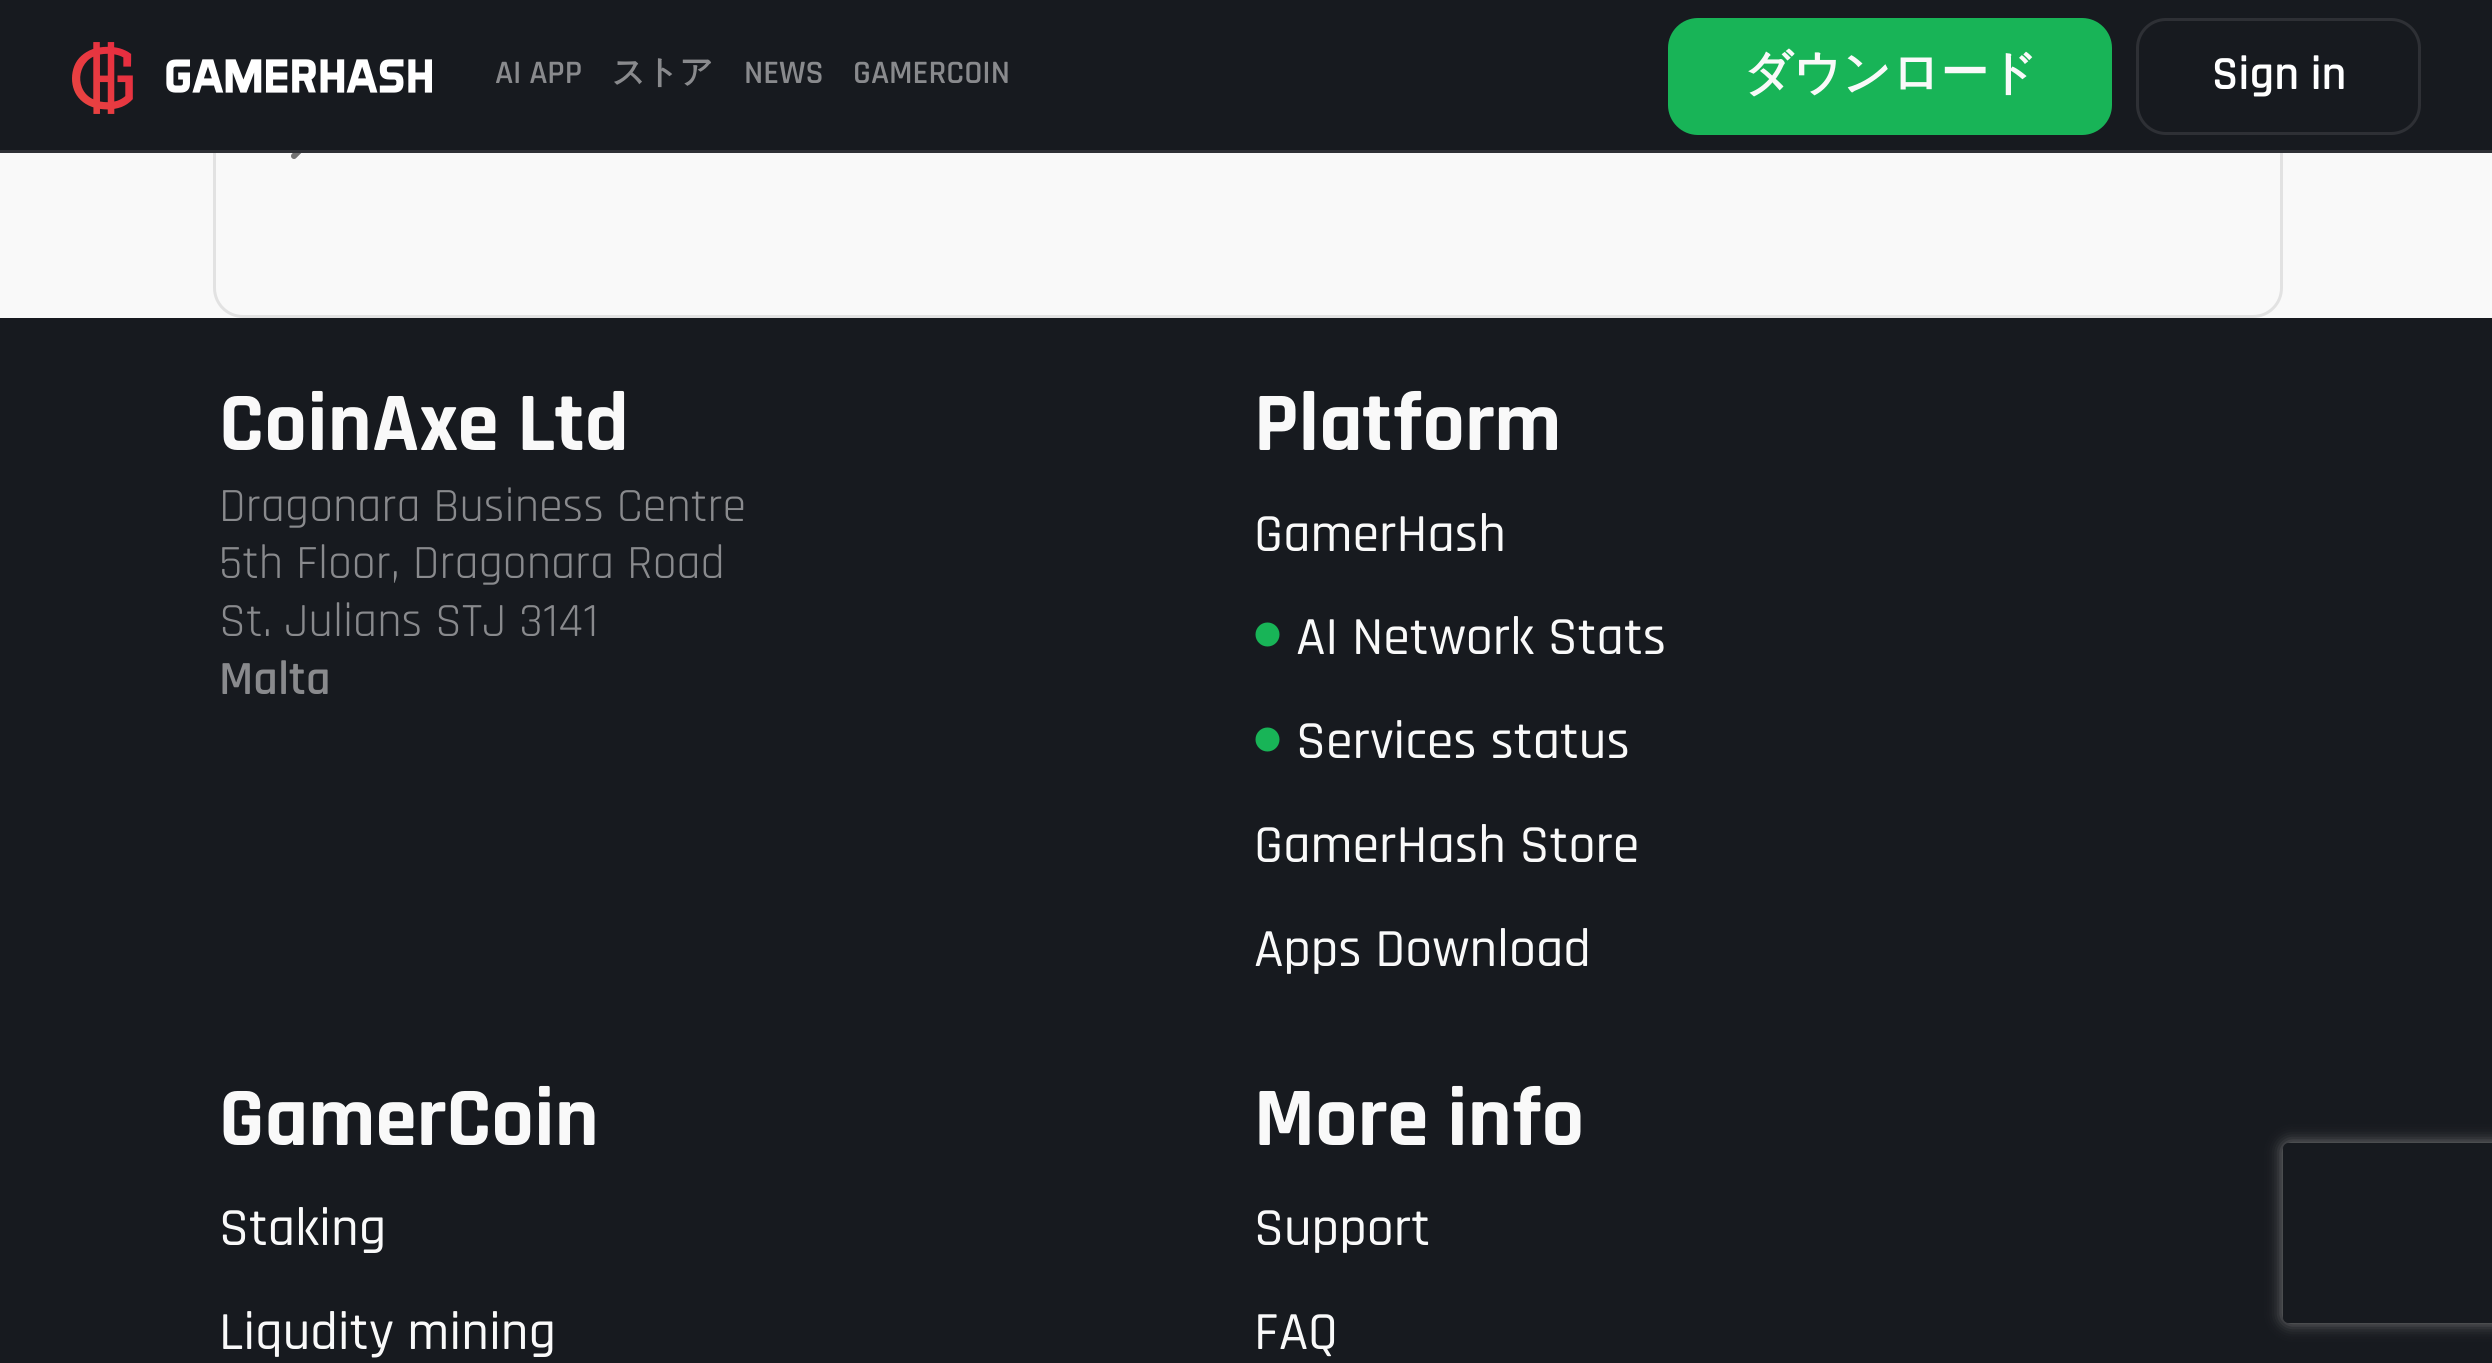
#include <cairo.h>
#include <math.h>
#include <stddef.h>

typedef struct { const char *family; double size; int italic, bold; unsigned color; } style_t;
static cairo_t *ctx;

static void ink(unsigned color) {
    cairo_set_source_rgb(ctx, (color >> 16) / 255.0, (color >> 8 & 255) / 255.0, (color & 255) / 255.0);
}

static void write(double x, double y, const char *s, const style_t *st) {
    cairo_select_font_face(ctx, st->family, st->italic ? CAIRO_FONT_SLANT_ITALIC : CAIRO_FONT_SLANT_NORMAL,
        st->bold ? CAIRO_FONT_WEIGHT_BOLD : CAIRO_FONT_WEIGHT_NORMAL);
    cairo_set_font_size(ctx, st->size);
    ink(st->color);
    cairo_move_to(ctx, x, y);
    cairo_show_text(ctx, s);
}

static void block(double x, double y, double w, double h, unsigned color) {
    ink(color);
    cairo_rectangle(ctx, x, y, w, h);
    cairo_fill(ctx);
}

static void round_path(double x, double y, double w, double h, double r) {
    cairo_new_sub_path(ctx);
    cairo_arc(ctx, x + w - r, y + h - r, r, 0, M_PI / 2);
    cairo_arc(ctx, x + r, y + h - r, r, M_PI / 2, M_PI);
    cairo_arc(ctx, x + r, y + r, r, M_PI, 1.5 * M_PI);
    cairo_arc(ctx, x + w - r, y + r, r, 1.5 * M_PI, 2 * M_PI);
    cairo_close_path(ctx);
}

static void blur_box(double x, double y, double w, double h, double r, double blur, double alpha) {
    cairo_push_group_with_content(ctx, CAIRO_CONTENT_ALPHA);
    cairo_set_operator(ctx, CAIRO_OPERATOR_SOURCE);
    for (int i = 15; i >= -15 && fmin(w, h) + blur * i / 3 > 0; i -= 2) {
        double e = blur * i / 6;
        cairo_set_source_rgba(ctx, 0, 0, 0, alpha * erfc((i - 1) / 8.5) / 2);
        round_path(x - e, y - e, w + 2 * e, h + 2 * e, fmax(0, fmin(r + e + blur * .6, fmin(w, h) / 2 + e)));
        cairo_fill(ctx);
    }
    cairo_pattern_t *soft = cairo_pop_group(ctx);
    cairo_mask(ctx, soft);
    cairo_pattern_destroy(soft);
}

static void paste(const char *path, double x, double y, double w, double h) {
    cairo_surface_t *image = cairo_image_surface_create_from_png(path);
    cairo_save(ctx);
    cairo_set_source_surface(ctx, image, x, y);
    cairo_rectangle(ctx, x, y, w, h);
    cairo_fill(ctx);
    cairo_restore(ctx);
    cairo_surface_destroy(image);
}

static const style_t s1 = {"Rajdhani SemiBold", 33, 0, 0, 0x898a8d};
static const style_t s2 = {"WenQuanYi Zen Hei", 33, 0, 1, 0x898a8d};
static const style_t s3 = {"WenQuanYi Zen Hei", 48, 0, 1, 0xf9f9f9};
static const style_t s4 = {"Rajdhani SemiBold", 48, 0, 0, 0xffffff};
static const style_t s5 = {"Rajdhani", 84, 0, 1, 0xf9f9f9};
static const style_t s6 = {"Rajdhani", 48, 0, 0, 0x898a8d};
static const style_t s7 = {"Rajdhani SemiBold", 48, 0, 0, 0x898a8d};
static const style_t s8 = {"Rajdhani Medium", 54, 0, 0, 0xf9f9f9};

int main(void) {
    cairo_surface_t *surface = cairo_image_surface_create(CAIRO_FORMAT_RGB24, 2492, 1363);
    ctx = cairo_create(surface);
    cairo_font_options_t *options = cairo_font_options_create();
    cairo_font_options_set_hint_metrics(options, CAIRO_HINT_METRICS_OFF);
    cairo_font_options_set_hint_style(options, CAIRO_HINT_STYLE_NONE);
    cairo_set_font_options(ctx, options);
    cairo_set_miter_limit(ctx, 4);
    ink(0xf9f9f9);
    cairo_paint(ctx);
    round_path(214.5, -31.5, 2067, 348, 28.5);
    ink(0xe2e2e2);
    cairo_set_line_width(ctx, 3);
    cairo_stroke(ctx);
    cairo_new_path(ctx);
    cairo_move_to(ctx, 294, 132);
    cairo_line_to(ctx, 306, 144);
    cairo_line_to(ctx, 294, 156);
    ink(0x737373);
    cairo_set_line_width(ctx, 6);
    cairo_set_line_cap(ctx, CAIRO_LINE_CAP_ROUND);
    cairo_set_line_join(ctx, CAIRO_LINE_JOIN_ROUND);
    cairo_stroke(ctx);
    block(0, 318, 2492, 1045, 0x171a1f);
    cairo_save(ctx);
    cairo_set_fill_rule(ctx, CAIRO_FILL_RULE_EVEN_ODD);
    cairo_new_path(ctx);
    cairo_move_to(ctx, 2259, 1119);
    cairo_line_to(ctx, 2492, 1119);
    cairo_line_to(ctx, 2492, 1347);
    cairo_line_to(ctx, 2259, 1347);
    cairo_close_path(ctx);
    cairo_move_to(ctx, 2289, 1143);
    cairo_line_to(ctx, 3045, 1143);
    cairo_curve_to(ctx, 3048.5, 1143, 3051, 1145.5, 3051, 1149);
    cairo_line_to(ctx, 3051, 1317);
    cairo_curve_to(ctx, 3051, 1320.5, 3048.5, 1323, 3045, 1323);
    cairo_line_to(ctx, 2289, 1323);
    cairo_curve_to(ctx, 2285.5, 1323, 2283, 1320.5, 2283, 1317);
    cairo_line_to(ctx, 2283, 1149);
    cairo_curve_to(ctx, 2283, 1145.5, 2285.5, 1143, 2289, 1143);
    cairo_close_path(ctx);
    cairo_clip(ctx);
    ink(0x808080);
    blur_box(2283, 1143, 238, 180, 6, 7.5, 1);
    cairo_restore(ctx);
    block(0, 0, 2492, 150, 0x171a1f);
    block(0, 150, 2492, 3, 0x2e3035);
    paste("pic1.png", 72, 42, 360, 72);
    write(495, 83, "AI APP", &s1);
    write(612, 83, "ストア", &s2);
    write(744, 83, "NEWS", &s1);
    write(853, 83, "GAMERCOIN", &s1);
    ink(0x18b457);
    round_path(1668, 18, 444, 117, 30);
    cairo_fill(ctx);
    write(1744, 89, "ダウンロード", &s3);
    round_path(2137.5, 19.5, 282, 114, 28.5);
    ink(0x2e3035);
    cairo_set_line_width(ctx, 3);
    cairo_set_line_cap(ctx, CAIRO_LINE_CAP_BUTT);
    cairo_set_line_join(ctx, CAIRO_LINE_JOIN_MITER);
    cairo_stroke(ctx);
    write(2212, 89, "Sign in", &s4);
    write(219, 450, "CoinAxe Ltd", &s5);
    write(219, 521, "Dragonara Business Centre", &s6);
    write(219, 578, "5th Floor, Dragonara Road", &s6);
    write(219, 636, "St. Julians STJ 3141", &s6);
    write(219, 694, "Malta", &s7);
    write(1254, 450, "Platform", &s5);
    write(1254, 551, "GamerHash", &s8);
    ink(0x18b457);
    cairo_new_path(ctx);
    cairo_arc(ctx, 1267.5, 634.5, 12, 0, 2 * M_PI);
    cairo_fill(ctx);
    write(1296, 654, "AI Network Stats", &s8);
    ink(0x18b457);
    cairo_new_path(ctx);
    cairo_arc(ctx, 1267.5, 739.5, 12, 0, 2 * M_PI);
    cairo_fill(ctx);
    write(1296, 758, "Services status", &s8);
    write(1254, 862, "GamerHash Store", &s8);
    write(1254, 966, "Apps Download", &s8);
    write(219, 1145, "GamerCoin", &s5);
    write(219, 1245, "Staking", &s8);
    write(219, 1349, "Liqudity mining", &s8);
    write(1254, 1145, "More info", &s5);
    write(1254, 1245, "Support", &s8);
    write(1254, 1349, "FAQ", &s8);
    cairo_surface_write_to_png(surface, "screenshot.png");
    cairo_font_options_destroy(options);
    cairo_destroy(ctx);
    cairo_surface_destroy(surface);
    return 0;
}
